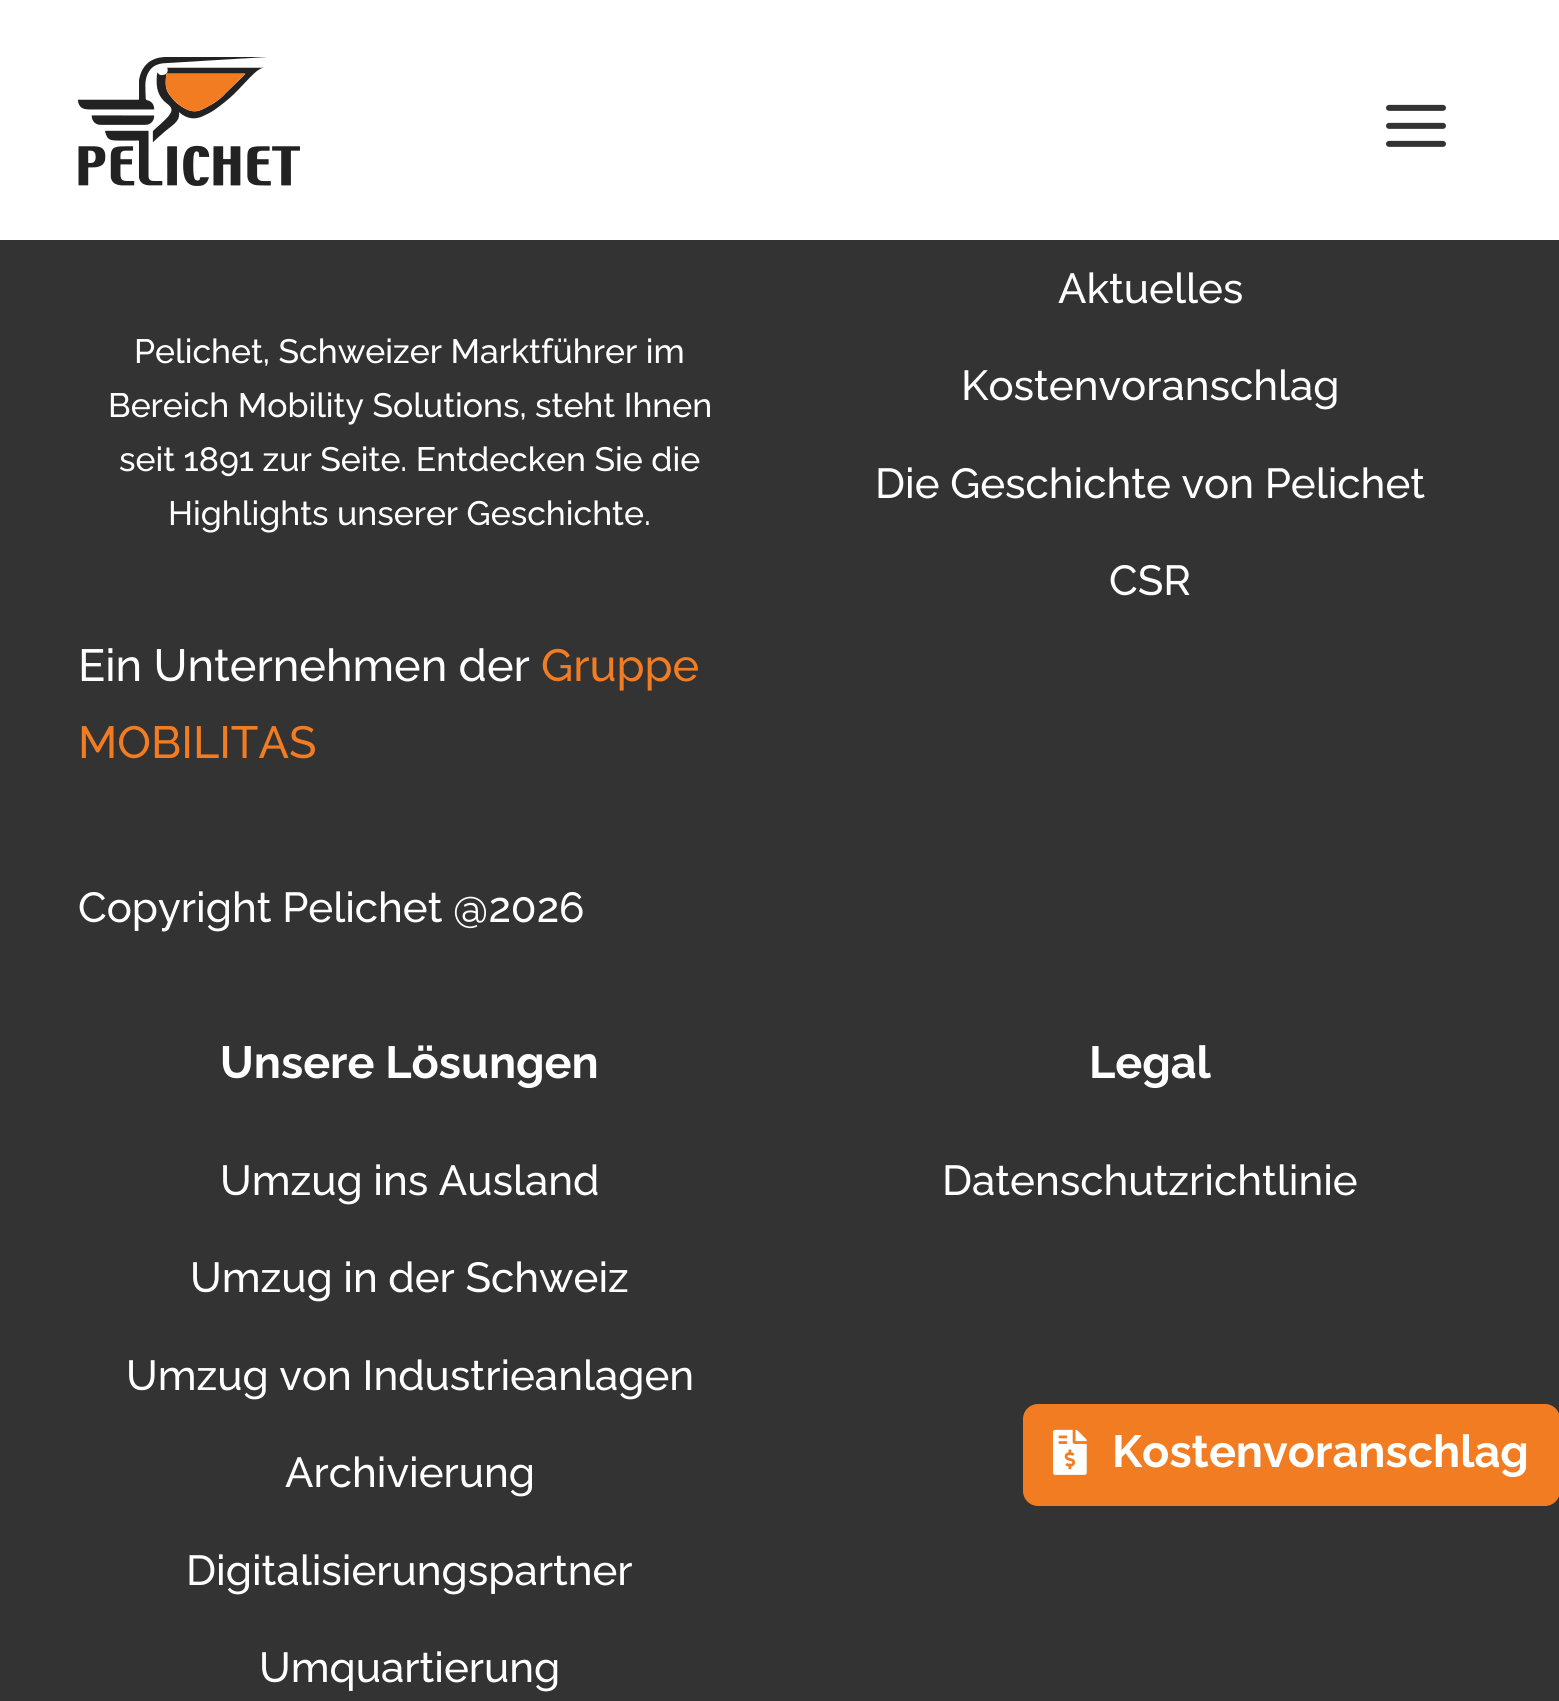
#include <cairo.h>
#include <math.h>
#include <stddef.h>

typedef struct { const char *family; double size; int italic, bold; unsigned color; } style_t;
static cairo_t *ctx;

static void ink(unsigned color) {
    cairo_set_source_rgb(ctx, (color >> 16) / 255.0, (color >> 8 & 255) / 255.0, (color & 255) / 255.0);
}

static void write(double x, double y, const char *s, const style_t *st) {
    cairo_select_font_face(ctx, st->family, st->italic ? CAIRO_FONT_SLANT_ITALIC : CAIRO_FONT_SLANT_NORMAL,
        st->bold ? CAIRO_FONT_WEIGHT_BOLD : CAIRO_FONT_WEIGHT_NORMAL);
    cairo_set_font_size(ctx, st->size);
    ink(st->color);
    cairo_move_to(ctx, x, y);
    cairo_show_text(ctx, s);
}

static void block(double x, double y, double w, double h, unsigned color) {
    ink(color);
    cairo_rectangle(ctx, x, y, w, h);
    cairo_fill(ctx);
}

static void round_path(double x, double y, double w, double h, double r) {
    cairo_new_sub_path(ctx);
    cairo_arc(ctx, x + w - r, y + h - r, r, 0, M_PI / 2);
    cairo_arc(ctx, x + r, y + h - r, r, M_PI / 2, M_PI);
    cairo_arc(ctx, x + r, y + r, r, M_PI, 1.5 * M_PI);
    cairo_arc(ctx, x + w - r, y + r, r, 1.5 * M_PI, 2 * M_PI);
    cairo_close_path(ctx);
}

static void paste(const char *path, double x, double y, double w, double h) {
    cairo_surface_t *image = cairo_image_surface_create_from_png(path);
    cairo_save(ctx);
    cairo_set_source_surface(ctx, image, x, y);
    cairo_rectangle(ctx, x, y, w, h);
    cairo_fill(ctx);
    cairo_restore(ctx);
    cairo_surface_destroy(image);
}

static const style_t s1 = {"Raleway Medium", 33.75, 0, 0, 0xffffff};
static const style_t s2 = {"Raleway Medium", 45, 0, 0, 0xffffff};
static const style_t s3 = {"Raleway Medium", 45, 0, 0, 0xf27c21};
static const style_t s4 = {"Raleway Medium", 42, 0, 0, 0xffffff};
static const style_t s5 = {"Raleway", 45, 0, 1, 0xffffff};

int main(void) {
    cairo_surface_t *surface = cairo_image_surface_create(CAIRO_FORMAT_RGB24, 1559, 1701);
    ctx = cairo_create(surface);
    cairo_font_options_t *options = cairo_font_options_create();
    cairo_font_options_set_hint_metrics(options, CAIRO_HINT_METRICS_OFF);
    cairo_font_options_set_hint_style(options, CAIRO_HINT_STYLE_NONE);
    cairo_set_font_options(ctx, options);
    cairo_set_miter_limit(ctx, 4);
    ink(0x333333);
    cairo_paint(ctx);
    block(0, 0, 1559, 240, 0xffffff);
    paste("pic1.png", 78, 57, 222, 129);
    paste("pic2.png", 1386, 104, 60, 43);
    write(134, 363, "Pelichet, Schweizer Marktführer im", &s1);
    write(108, 417, "Bereich Mobility Solutions, steht Ihnen", &s1);
    write(119, 471, "seit 1891 zur Seite. Entdecken Sie die", &s1);
    write(168, 525, "Highlights unserer Geschichte.", &s1);
    write(78, 681, "Ein Unternehmen der", &s2);
    write(541, 681, "Gruppe", &s3);
    write(78, 758, "MOBILITAS", &s3);
    write(78, 922, "Copyright Pelichet @2026", &s4);
    write(1058, 303, "Aktuelles", &s4);
    write(961, 400, "Kostenvoranschlag", &s4);
    write(875, 498, "Die Geschichte von Pelichet", &s4);
    write(1109, 595, "CSR", &s4);
    write(220, 1078, "Unsere Lösungen", &s5);
    write(220, 1195, "Umzug ins Ausland", &s4);
    write(190, 1292, "Umzug in der Schweiz", &s4);
    write(126, 1390, "Umzug von Industrieanlagen", &s4);
    write(285, 1487, "Archivierung", &s4);
    write(186, 1585, "Digitalisierungspartner", &s4);
    write(259, 1682, "Umquartierung", &s4);
    write(1089, 1078, "Legal", &s5);
    write(942, 1195, "Datenschutzrichtlinie", &s4);
    ink(0xf27c21);
    round_path(1023, 1404, 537, 102, 15);
    cairo_fill(ctx);
    paste("pic3.png", 1053, 1429, 34, 46);
    write(1112, 1467, "Kostenvoranschlag", &s5);
    cairo_surface_write_to_png(surface, "screenshot.png");
    cairo_font_options_destroy(options);
    cairo_destroy(ctx);
    cairo_surface_destroy(surface);
    return 0;
}
